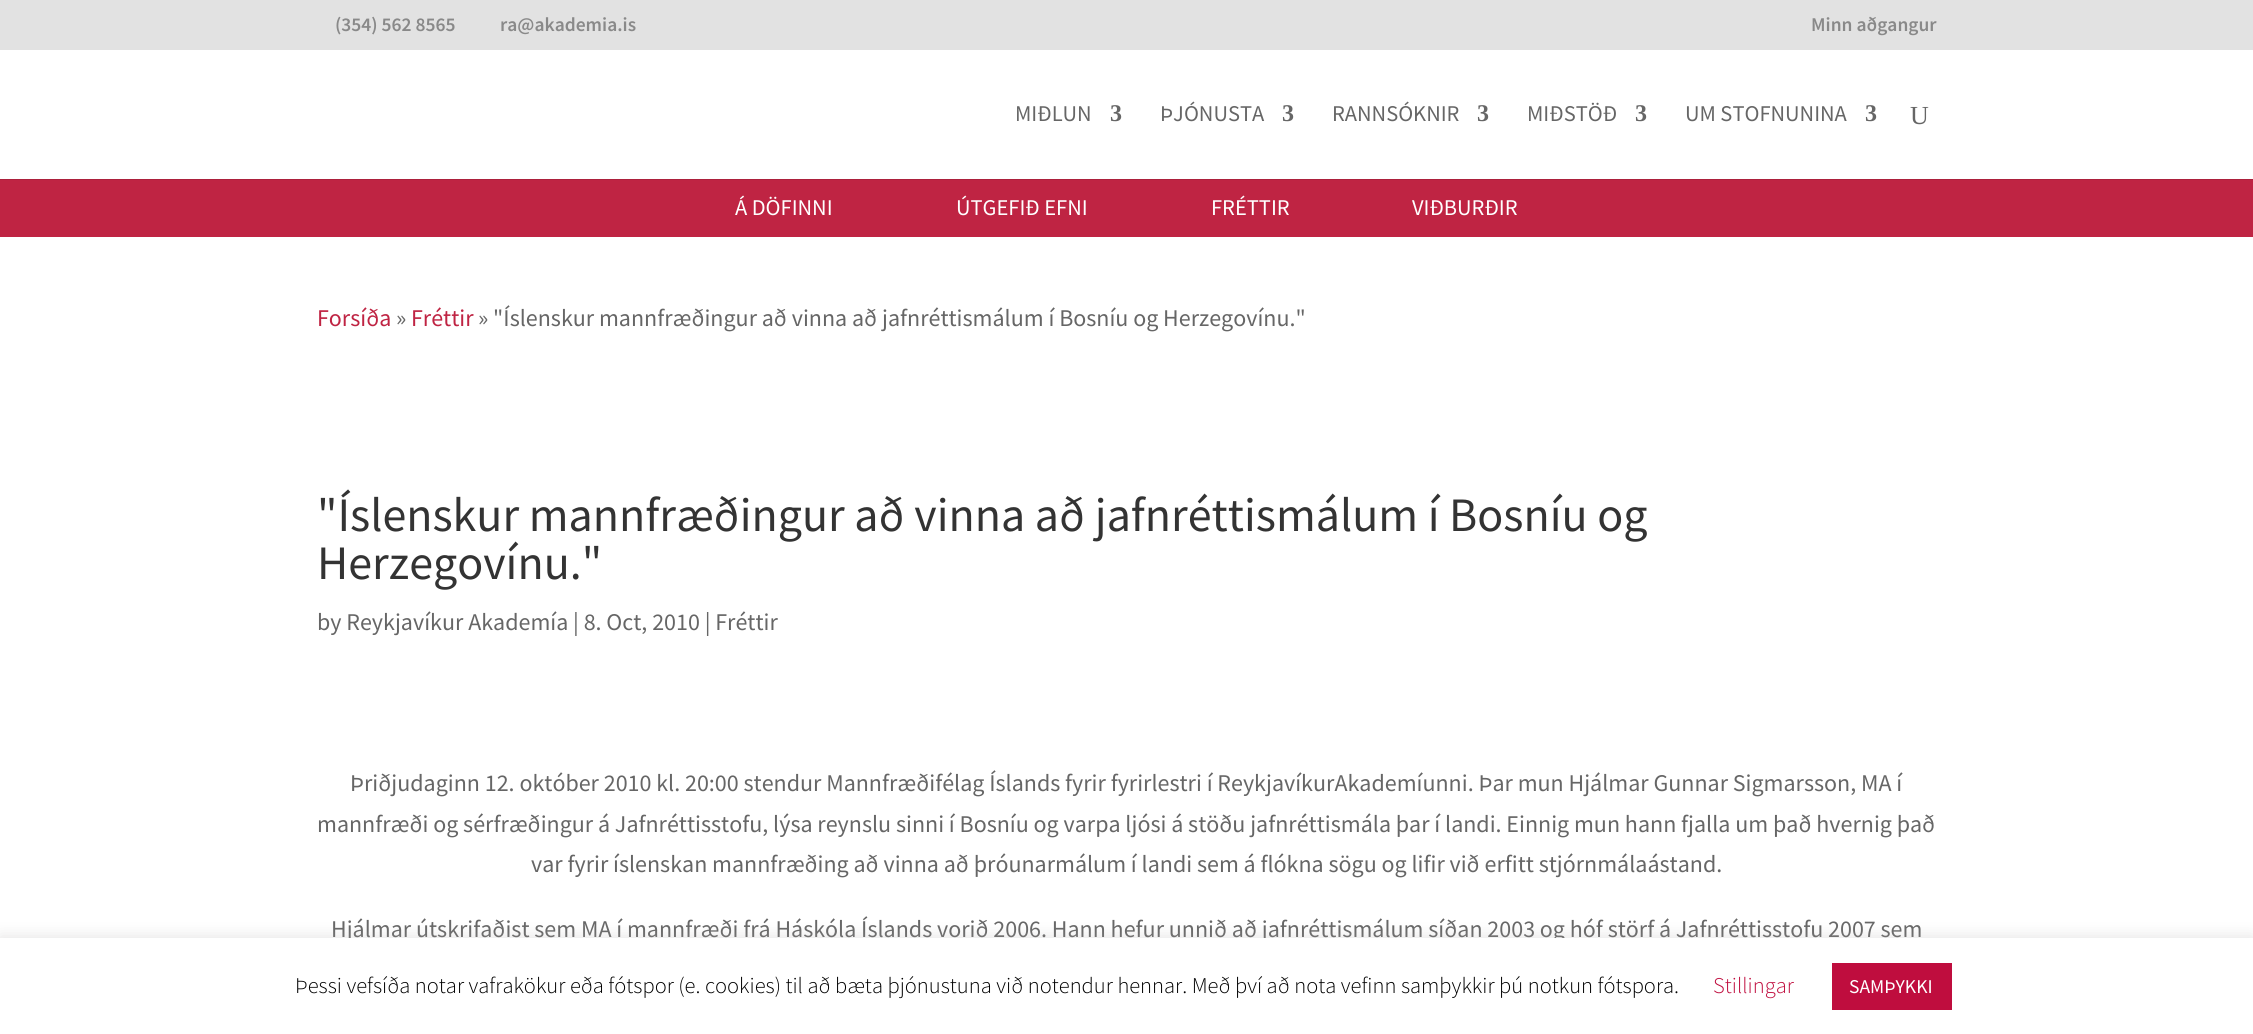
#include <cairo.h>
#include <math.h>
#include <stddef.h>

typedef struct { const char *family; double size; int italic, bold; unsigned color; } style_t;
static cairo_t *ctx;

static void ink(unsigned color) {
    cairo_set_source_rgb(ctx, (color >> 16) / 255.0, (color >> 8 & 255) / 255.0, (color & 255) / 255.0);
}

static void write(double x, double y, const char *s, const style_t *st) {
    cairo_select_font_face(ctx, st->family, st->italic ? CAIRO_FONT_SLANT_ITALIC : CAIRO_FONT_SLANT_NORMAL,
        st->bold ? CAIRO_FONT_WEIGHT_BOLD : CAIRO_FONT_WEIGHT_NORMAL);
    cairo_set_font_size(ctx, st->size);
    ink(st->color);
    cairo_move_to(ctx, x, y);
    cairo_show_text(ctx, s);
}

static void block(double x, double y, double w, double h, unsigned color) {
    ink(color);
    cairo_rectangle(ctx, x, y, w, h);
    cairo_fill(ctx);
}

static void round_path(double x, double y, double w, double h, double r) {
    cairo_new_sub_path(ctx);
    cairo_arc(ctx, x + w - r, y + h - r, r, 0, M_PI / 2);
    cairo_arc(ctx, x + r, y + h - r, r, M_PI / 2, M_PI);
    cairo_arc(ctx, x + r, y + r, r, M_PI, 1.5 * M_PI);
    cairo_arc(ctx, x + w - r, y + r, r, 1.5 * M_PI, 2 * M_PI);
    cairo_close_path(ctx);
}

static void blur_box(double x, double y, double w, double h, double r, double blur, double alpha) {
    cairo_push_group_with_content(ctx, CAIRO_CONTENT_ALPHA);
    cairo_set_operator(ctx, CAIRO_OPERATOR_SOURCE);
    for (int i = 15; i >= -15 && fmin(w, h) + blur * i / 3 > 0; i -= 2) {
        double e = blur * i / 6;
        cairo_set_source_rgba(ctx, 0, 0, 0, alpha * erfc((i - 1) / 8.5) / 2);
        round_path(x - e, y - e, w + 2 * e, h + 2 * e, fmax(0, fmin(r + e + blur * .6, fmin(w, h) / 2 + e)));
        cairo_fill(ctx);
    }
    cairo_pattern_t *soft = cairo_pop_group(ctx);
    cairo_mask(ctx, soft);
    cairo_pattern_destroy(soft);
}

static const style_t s1 = {"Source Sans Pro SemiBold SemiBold", 19.5, 0, 0, 0x898989};
static const style_t s2 = {"Source Sans Pro", 22.5, 0, 0, 0x666666};
static const style_t s3 = {"Liberation Serif", 24, 0, 1, 0x666666};
static const style_t s4 = {"Liberation Serif", 26, 0, 0, 0x666666};
static const style_t s5 = {"Source Sans Pro", 22.5, 0, 0, 0xffffff};
static const style_t s6 = {"Source Sans Pro", 24, 0, 0, 0xbf2443};
static const style_t s7 = {"Source Sans Pro", 24, 0, 0, 0x666666};
static const style_t s8 = {"Source Sans Pro", 48, 0, 0, 0x333333};
static const style_t s9 = {"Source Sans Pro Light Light", 22.5, 0, 0, 0x000000};
static const style_t s10 = {"Source Sans Pro Light Light", 22.5, 0, 0, 0xbf0d3e};
static const style_t s11 = {"Source Sans Pro", 19.5, 0, 0, 0xffffff};

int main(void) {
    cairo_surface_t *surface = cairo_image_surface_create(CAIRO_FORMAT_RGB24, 2253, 1034);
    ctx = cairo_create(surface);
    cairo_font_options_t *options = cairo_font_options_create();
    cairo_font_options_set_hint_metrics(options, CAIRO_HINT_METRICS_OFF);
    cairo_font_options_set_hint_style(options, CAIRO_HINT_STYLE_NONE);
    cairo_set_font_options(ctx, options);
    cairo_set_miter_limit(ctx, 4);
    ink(0xffffff);
    cairo_paint(ctx);
    block(0, 0, 2253, 50, 0xe2e2e2);
    write(335, 31, "(354) 562 8565", &s1);
    write(500, 31, "ra@akademia.is", &s1);
    write(1811, 31, "Minn aðgangur", &s1);
    block(0, 179, 2253, 1, 0xac203c);
    write(1015, 121, "MIÐLUN", &s2);
    write(1110, 121, "3", &s3);
    write(1160, 121, "ÞJÓNUSTA", &s2);
    write(1282, 121, "3", &s3);
    write(1332, 121, "RANNSÓKNIR", &s2);
    write(1477, 121, "3", &s3);
    write(1527, 121, "MIÐSTÖÐ", &s2);
    write(1635, 121, "3", &s3);
    write(1685, 121, "UM STOFNUNINA", &s2);
    write(1865, 121, "3", &s3);
    write(1910, 124, "U", &s4);
    block(0, 180, 2253, 57, 0xbf2443);
    write(735, 215, "Á DÖFINNI", &s5);
    write(956, 215, "ÚTGEFIÐ EFNI", &s5);
    write(1211, 215, "FRÉTTIR", &s5);
    write(1412, 215, "VIÐBURÐIR", &s5);
    write(317, 326, "Forsíða", &s6);
    write(396, 326, "»", &s7);
    write(411, 326, "Fréttir", &s6);
    write(478, 326, "» \"Íslenskur mannfræðingur að vinna að jafnréttismálum í Bosníu og Herzegovínu.\"", &s7);
    write(317, 531, "\"Íslenskur mannfræðingur að vinna að jafnréttismálum í Bosníu og", &s8);
    write(317, 579, "Herzegovínu.\"", &s8);
    write(317, 630, "by Reykjavíkur Akademía | 8. Oct, 2010 | Fréttir", &s7);
    write(350, 791, "Þriðjudaginn 12. október 2010 kl. 20:00 stendur Mannfræðifélag Íslands fyrir fyrirlestri í ReykjavíkurAkademíunni. Þar mun Hjálmar Gunnar Sigmarsson, MA í", &s7);
    write(317, 832, "mannfræði og sérfræðingur á Jafnréttisstofu, lýsa reynslu sinni í Bosníu og varpa ljósi á stöðu jafnréttismála þar í landi. Einnig mun hann fjalla um það hvernig það", &s7);
    write(531, 872, "var fyrir íslenskan mannfræðing að vinna að þróunarmálum í landi sem á flókna sögu og lifir við erfitt stjórnmálaástand.", &s7);
    write(331, 937, "Hjálmar útskrifaðist sem MA í mannfræði frá Háskóla Íslands vorið 2006. Hann hefur unnið að jafnréttismálum síðan 2003 og hóf störf á Jafnréttisstofu 2007 sem", &s7);
    ink(0xacabab);
    blur_box(0, 936, 2253, 98, 0, 7.5, 0.3);
    block(0, 938, 2253, 96, 0xffffff);
    write(295, 993, "Þessi vefsíða notar vafrakökur eða fótspor (e. cookies) til að bæta þjónustuna við notendur hennar. Með því að nota vefinn samþykkir þú notkun fótspora.", &s9);
    write(1713, 993, "Stillingar", &s10);
    block(1832, 963, 120, 47, 0xbf0d3e);
    write(1849, 993, "SAMÞYKKI", &s11);
    cairo_surface_write_to_png(surface, "screenshot.png");
    cairo_font_options_destroy(options);
    cairo_destroy(ctx);
    cairo_surface_destroy(surface);
    return 0;
}
